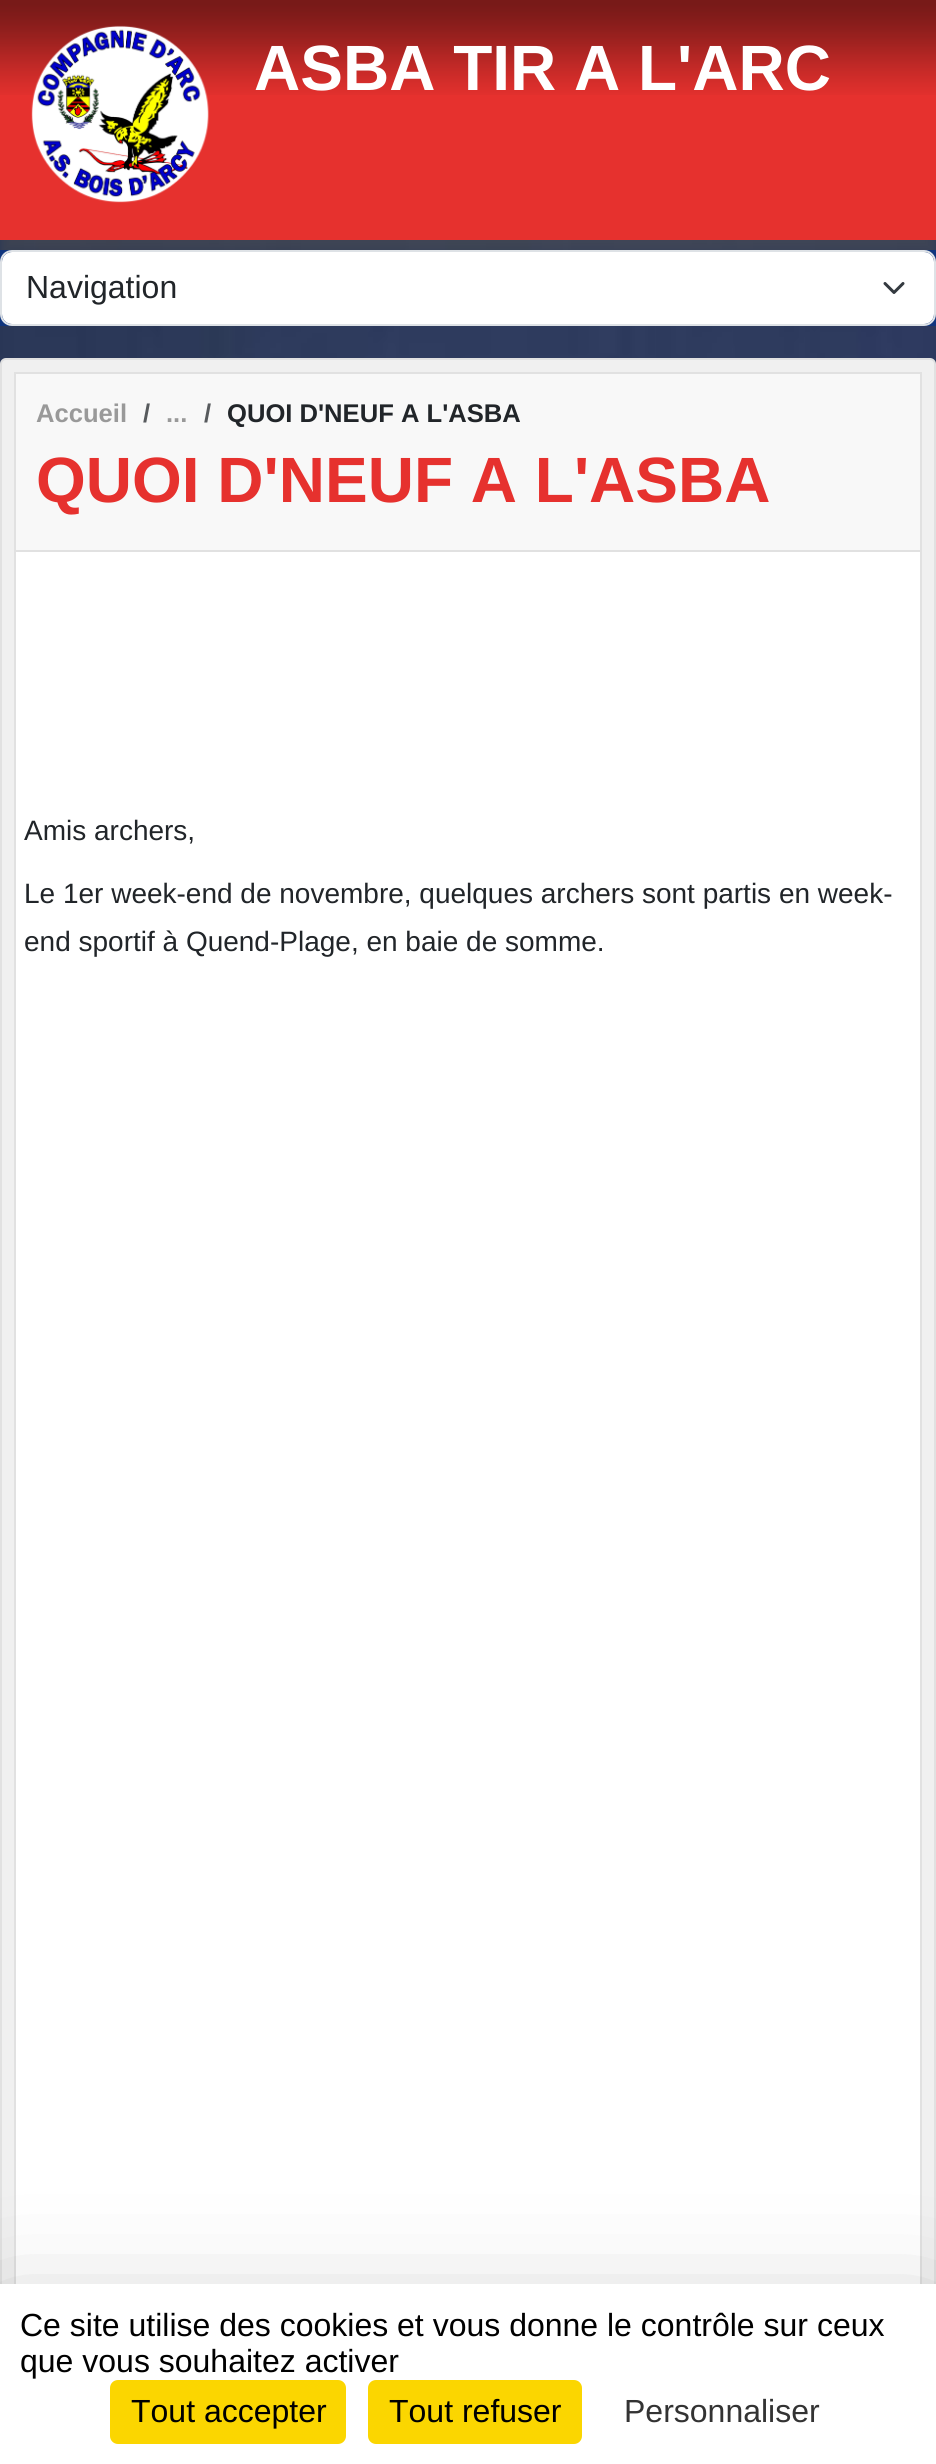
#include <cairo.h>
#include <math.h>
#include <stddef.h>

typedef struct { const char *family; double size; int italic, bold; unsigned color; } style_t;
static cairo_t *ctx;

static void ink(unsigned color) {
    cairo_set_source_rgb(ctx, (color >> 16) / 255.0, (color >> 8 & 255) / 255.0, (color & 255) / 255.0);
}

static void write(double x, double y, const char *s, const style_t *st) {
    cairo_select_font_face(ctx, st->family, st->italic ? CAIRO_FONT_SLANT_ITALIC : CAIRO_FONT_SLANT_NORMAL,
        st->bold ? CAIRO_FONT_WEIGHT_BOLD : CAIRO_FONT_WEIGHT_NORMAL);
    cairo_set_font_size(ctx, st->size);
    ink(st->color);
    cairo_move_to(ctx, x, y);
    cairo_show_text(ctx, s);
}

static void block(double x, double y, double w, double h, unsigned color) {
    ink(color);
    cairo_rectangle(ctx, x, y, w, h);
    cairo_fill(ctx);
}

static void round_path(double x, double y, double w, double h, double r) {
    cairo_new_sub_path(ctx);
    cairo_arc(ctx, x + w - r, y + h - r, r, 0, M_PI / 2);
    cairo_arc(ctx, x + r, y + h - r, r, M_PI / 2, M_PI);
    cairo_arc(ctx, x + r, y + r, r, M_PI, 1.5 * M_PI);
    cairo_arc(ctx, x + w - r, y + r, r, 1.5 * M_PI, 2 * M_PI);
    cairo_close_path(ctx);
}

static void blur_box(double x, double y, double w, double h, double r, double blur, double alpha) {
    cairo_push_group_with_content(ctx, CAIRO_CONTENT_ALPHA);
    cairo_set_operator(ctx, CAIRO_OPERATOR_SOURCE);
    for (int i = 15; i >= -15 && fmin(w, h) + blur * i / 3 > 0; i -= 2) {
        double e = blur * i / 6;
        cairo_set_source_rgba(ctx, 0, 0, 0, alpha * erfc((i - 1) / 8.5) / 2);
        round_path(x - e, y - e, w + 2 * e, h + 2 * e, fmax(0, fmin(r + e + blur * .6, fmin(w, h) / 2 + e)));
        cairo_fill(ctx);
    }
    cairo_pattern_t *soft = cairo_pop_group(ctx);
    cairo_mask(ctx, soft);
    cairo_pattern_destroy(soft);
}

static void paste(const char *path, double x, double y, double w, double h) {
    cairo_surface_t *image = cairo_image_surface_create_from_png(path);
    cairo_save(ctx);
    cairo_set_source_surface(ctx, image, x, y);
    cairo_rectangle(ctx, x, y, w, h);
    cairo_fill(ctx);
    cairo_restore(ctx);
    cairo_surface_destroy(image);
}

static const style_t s1 = {"Liberation Sans", 64, 0, 1, 0xffffff};
static const style_t s2 = {"Liberation Sans", 32, 0, 0, 0x212529};
static const style_t s3 = {"Liberation Sans", 25.6, 0, 1, 0x999999};
static const style_t s4 = {"Liberation Sans", 25.6, 0, 1, 0x575a5d};
static const style_t s5 = {"Liberation Sans", 25.6, 0, 1, 0x212529};
static const style_t s6 = {"Liberation Sans", 64, 0, 1, 0xe6312e};
static const style_t s7 = {"Liberation Sans", 28, 0, 0, 0x212529};
static const style_t s8 = {"Liberation Sans", 32, 0, 0, 0x000000};
static const style_t s9 = {"Liberation Sans", 32, 0, 0, 0x333333};

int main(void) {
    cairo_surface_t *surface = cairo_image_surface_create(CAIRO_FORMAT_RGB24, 936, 2464);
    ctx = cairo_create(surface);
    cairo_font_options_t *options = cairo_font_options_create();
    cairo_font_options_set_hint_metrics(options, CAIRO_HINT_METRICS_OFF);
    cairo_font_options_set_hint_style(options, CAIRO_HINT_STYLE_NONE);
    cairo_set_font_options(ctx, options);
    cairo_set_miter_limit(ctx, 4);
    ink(0xffffff);
    cairo_paint(ctx);
    paste("pic1.png", 0, 240, 936, 124);
    ink(0x505050);
    blur_box(0, 14, 936, 240, 0, 5, 0.5);
    block(0, 0, 936, 240, 0xe6312e);
    paste("pic2.png", 0, 0, 936, 95);
    paste("pic3.png", 31, 25, 178, 178);
    write(254, 90, "ASBA TIR A L'ARC", &s1);
    block(0, 250, 936, 76, 0x10357e);
    ink(0xffffff);
    round_path(2, 252, 932, 72, 10);
    cairo_fill(ctx);
    cairo_new_path(ctx);
    cairo_move_to(ctx, 885, 283.5);
    cairo_line_to(ctx, 894, 292.5);
    cairo_line_to(ctx, 903, 283.5);
    ink(0x343a40);
    cairo_set_line_width(ctx, 3);
    cairo_set_line_cap(ctx, CAIRO_LINE_CAP_ROUND);
    cairo_set_line_join(ctx, CAIRO_LINE_JOIN_ROUND);
    cairo_stroke(ctx);
    round_path(1, 251, 934, 74, 11);
    ink(0xdee2e6);
    cairo_set_line_width(ctx, 2);
    cairo_set_line_cap(ctx, CAIRO_LINE_CAP_BUTT);
    cairo_set_line_join(ctx, CAIRO_LINE_JOIN_MITER);
    cairo_stroke(ctx);
    write(26, 298, "Navigation", &s2);
    ink(0xf0f0f0);
    round_path(1, 359, 934, 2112, 5);
    cairo_fill_preserve(ctx);
    ink(0xe1e1e1);
    cairo_stroke(ctx);
    block(16, 552, 904, 1732, 0xffffff);
    cairo_rectangle(ctx, 15, 373, 906, 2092);
    ink(0xe1e1e1);
    cairo_stroke(ctx);
    block(16, 374, 904, 176, 0xf8f8f8);
    block(16, 550, 904, 2, 0xe1e1e1);
    write(36, 422, "Accueil", &s3);
    write(143, 422, "/", &s4);
    write(166, 422, "...", &s3);
    write(204, 422, "/", &s4);
    write(227, 422, "QUOI D'NEUF A L'ASBA", &s5);
    write(36, 502, "QUOI D'NEUF A L'ASBA", &s6);
    write(24, 840, "Amis archers,", &s7);
    write(24, 903, "Le 1er week-end de novembre, quelques archers sont partis en week-", &s7);
    write(24, 951, "end sportif à Quend-Plage, en baie de somme.", &s7);
    ink(0x000000);
    blur_box(0, 2324, 936, 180, 0, 60, 0.25);
    block(0, 2284, 936, 180, 0xffffff);
    write(20, 2336, "Ce site utilise des cookies et vous donne le contrôle sur ceux", &s8);
    write(20, 2372, "que vous souhaitez activer", &s8);
    ink(0xfbd600);
    round_path(110, 2380, 236, 64, 8);
    cairo_fill(ctx);
    write(131, 2422, "Tout accepter", &s8);
    ink(0xfbd600);
    round_path(368, 2380, 214, 64, 8);
    cairo_fill(ctx);
    write(389, 2422, "Tout refuser", &s8);
    write(624, 2422, "Personnaliser", &s9);
    cairo_surface_write_to_png(surface, "screenshot.png");
    cairo_font_options_destroy(options);
    cairo_destroy(ctx);
    cairo_surface_destroy(surface);
    return 0;
}
